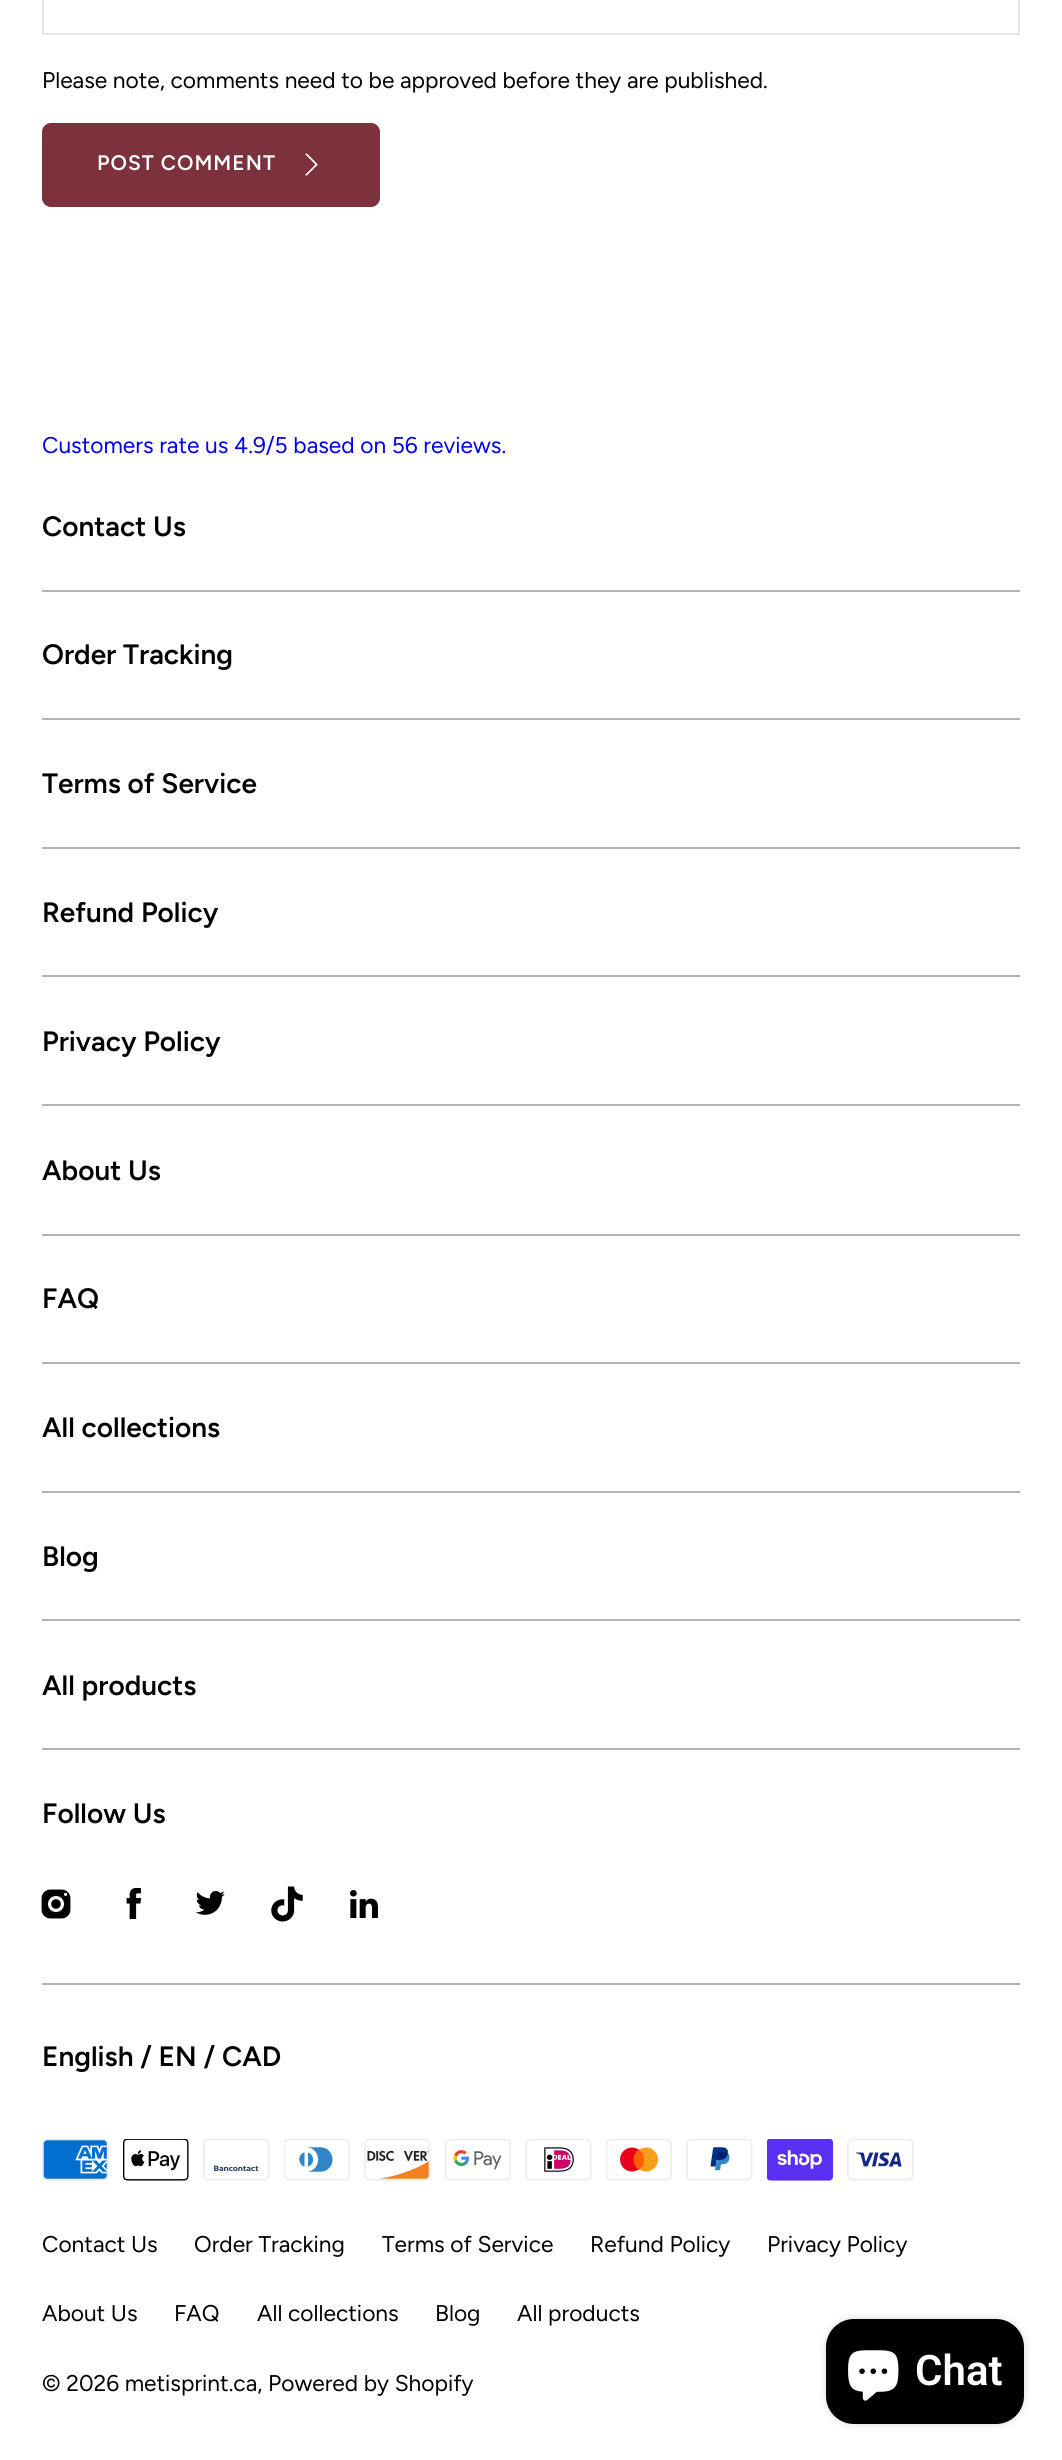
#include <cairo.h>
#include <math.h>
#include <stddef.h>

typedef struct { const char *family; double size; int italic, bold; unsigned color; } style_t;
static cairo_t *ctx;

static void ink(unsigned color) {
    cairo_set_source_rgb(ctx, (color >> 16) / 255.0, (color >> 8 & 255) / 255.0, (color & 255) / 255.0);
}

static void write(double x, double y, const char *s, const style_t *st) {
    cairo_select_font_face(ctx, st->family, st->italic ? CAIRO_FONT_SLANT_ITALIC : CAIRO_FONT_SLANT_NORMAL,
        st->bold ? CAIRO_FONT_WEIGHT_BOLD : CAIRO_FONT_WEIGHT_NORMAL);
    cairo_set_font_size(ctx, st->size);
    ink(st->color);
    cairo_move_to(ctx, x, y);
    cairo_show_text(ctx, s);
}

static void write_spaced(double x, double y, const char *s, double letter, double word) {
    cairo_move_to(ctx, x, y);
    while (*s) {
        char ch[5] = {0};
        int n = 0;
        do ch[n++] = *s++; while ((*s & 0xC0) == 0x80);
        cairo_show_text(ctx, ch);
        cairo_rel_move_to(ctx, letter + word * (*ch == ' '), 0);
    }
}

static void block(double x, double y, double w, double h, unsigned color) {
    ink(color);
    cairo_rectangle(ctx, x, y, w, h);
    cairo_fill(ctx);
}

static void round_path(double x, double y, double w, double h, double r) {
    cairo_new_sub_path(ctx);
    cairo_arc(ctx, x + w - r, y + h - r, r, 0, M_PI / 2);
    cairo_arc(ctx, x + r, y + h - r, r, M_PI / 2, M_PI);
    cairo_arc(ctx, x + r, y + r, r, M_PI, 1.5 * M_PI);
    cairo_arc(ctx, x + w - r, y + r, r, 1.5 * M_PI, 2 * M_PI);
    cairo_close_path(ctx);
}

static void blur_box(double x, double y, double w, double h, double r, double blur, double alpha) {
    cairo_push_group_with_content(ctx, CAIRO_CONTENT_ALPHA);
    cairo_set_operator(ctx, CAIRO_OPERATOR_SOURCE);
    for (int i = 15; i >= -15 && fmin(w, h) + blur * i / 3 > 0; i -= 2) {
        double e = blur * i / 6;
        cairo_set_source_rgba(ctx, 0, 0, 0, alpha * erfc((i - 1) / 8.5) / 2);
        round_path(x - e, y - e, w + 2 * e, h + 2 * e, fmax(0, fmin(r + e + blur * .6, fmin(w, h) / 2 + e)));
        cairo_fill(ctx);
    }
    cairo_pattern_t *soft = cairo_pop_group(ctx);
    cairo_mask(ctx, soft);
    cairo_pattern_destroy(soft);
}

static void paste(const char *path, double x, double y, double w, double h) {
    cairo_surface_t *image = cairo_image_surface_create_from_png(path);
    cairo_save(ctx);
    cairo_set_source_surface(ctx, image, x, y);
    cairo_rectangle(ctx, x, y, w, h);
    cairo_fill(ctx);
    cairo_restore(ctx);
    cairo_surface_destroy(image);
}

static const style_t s1 = {"Figtree", 22.75, 0, 0, 0x000000};
static const style_t s2 = {"Figtree", 22.75, 0, 0, 0x0000ee};
static const style_t s3 = {"Figtree SemiBold", 28, 0, 0, 0x000000};
static const style_t s4 = {"Roboto SemiBold", 42, 0, 0, 0xffffff};

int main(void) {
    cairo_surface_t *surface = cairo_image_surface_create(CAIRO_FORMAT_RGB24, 1062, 2460);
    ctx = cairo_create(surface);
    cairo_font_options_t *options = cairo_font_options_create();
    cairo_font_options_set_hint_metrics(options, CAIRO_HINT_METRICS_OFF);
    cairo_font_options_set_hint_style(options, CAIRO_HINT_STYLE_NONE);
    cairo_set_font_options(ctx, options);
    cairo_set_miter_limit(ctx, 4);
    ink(0xffffff);
    cairo_paint(ctx);
    cairo_rectangle(ctx, 43, -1, 976, 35);
    ink(0xe6e6e6);
    cairo_stroke(ctx);
    write(42, 88, "Please note, comments need to be approved before they are published.", &s1);
    ink(0x7c313c);
    round_path(42, 123, 338, 84, 9);
    cairo_fill(ctx);
    cairo_select_font_face(ctx, "Figtree SemiBold", CAIRO_FONT_SLANT_NORMAL, CAIRO_FONT_WEIGHT_NORMAL);
    cairo_set_font_size(ctx, 21);
    ink(0xffffff);
    write_spaced(97, 170, "POST COMMENT", 1, 0);
    paste("pic1.png", 305, 153, 13, 23);
    write(42, 453, "Customers rate us 4.9/5 based on 56 reviews.", &s2);
    write(42, 536, "Contact Us", &s3);
    block(42, 590, 978, 2, 0xb3b3b3);
    write(42, 664, "Order Tracking", &s3);
    block(42, 718, 978, 2, 0xb3b3b3);
    write(42, 793, "Terms of Service", &s3);
    block(42, 847, 978, 2, 0xb3b3b3);
    write(42, 922, "Refund Policy", &s3);
    block(42, 975, 978, 2, 0xb3b3b3);
    write(42, 1051, "Privacy Policy", &s3);
    block(42, 1104, 978, 2, 0xb3b3b3);
    write(42, 1180, "About Us", &s3);
    block(42, 1234, 978, 2, 0xb3b3b3);
    write(42, 1308, "FAQ", &s3);
    block(42, 1362, 978, 2, 0xb3b3b3);
    write(42, 1437, "All collections", &s3);
    block(42, 1491, 978, 2, 0xb3b3b3);
    write(42, 1566, "Blog", &s3);
    block(42, 1619, 978, 2, 0xb3b3b3);
    write(42, 1695, "All products", &s3);
    block(42, 1748, 978, 2, 0xb3b3b3);
    write(42, 1823, "Follow Us", &s3);
    paste("pic2.png", 41, 1889, 30, 30);
    paste("pic3.png", 126, 1887, 15, 32);
    paste("pic4.png", 195, 1891, 30, 24);
    paste("pic5.png", 271, 1886, 32, 36);
    paste("pic6.png", 350, 1890, 28, 28);
    block(42, 1983, 978, 2, 0xb3b3b3);
    write(42, 2066, "English / EN / CAD", &s3);
    paste("pic7.png", 42, 2139, 67, 42);
    paste("pic8.png", 123, 2139, 66, 42);
    paste("pic9.png", 203, 2139, 67, 42);
    paste("pic10.png", 284, 2139, 66, 42);
    paste("pic11.png", 364, 2139, 67, 42);
    paste("pic12.png", 445, 2139, 66, 42);
    paste("pic13.png", 525, 2139, 67, 42);
    paste("pic14.png", 606, 2139, 66, 42);
    paste("pic15.png", 686, 2139, 67, 42);
    paste("pic16.png", 767, 2139, 66, 42);
    paste("pic17.png", 847, 2139, 67, 42);
    write(42, 2252, "Contact Us", &s1);
    write(194, 2252, "Order Tracking", &s1);
    write(382, 2252, "Terms of Service", &s1);
    write(590, 2252, "Refund Policy", &s1);
    write(767, 2252, "Privacy Policy", &s1);
    write(42, 2321, "About Us", &s1);
    write(174, 2321, "FAQ", &s1);
    write(257, 2321, "All collections", &s1);
    write(435, 2321, "Blog", &s1);
    write(517, 2321, "All products", &s1);
    write(42, 2391, "© 2026 metisprint.ca, Powered by Shopify", &s1);
    ink(0x000000);
    blur_box(826, 2319, 198, 105, 28, 4.5, 0.15);
    ink(0x000000);
    round_path(826, 2319, 198, 105, 28);
    cairo_fill(ctx);
    paste("pic18.png", 848, 2350, 51, 51);
    write(915, 2385, "Chat", &s4);
    cairo_surface_write_to_png(surface, "screenshot.png");
    cairo_font_options_destroy(options);
    cairo_destroy(ctx);
    cairo_surface_destroy(surface);
    return 0;
}
